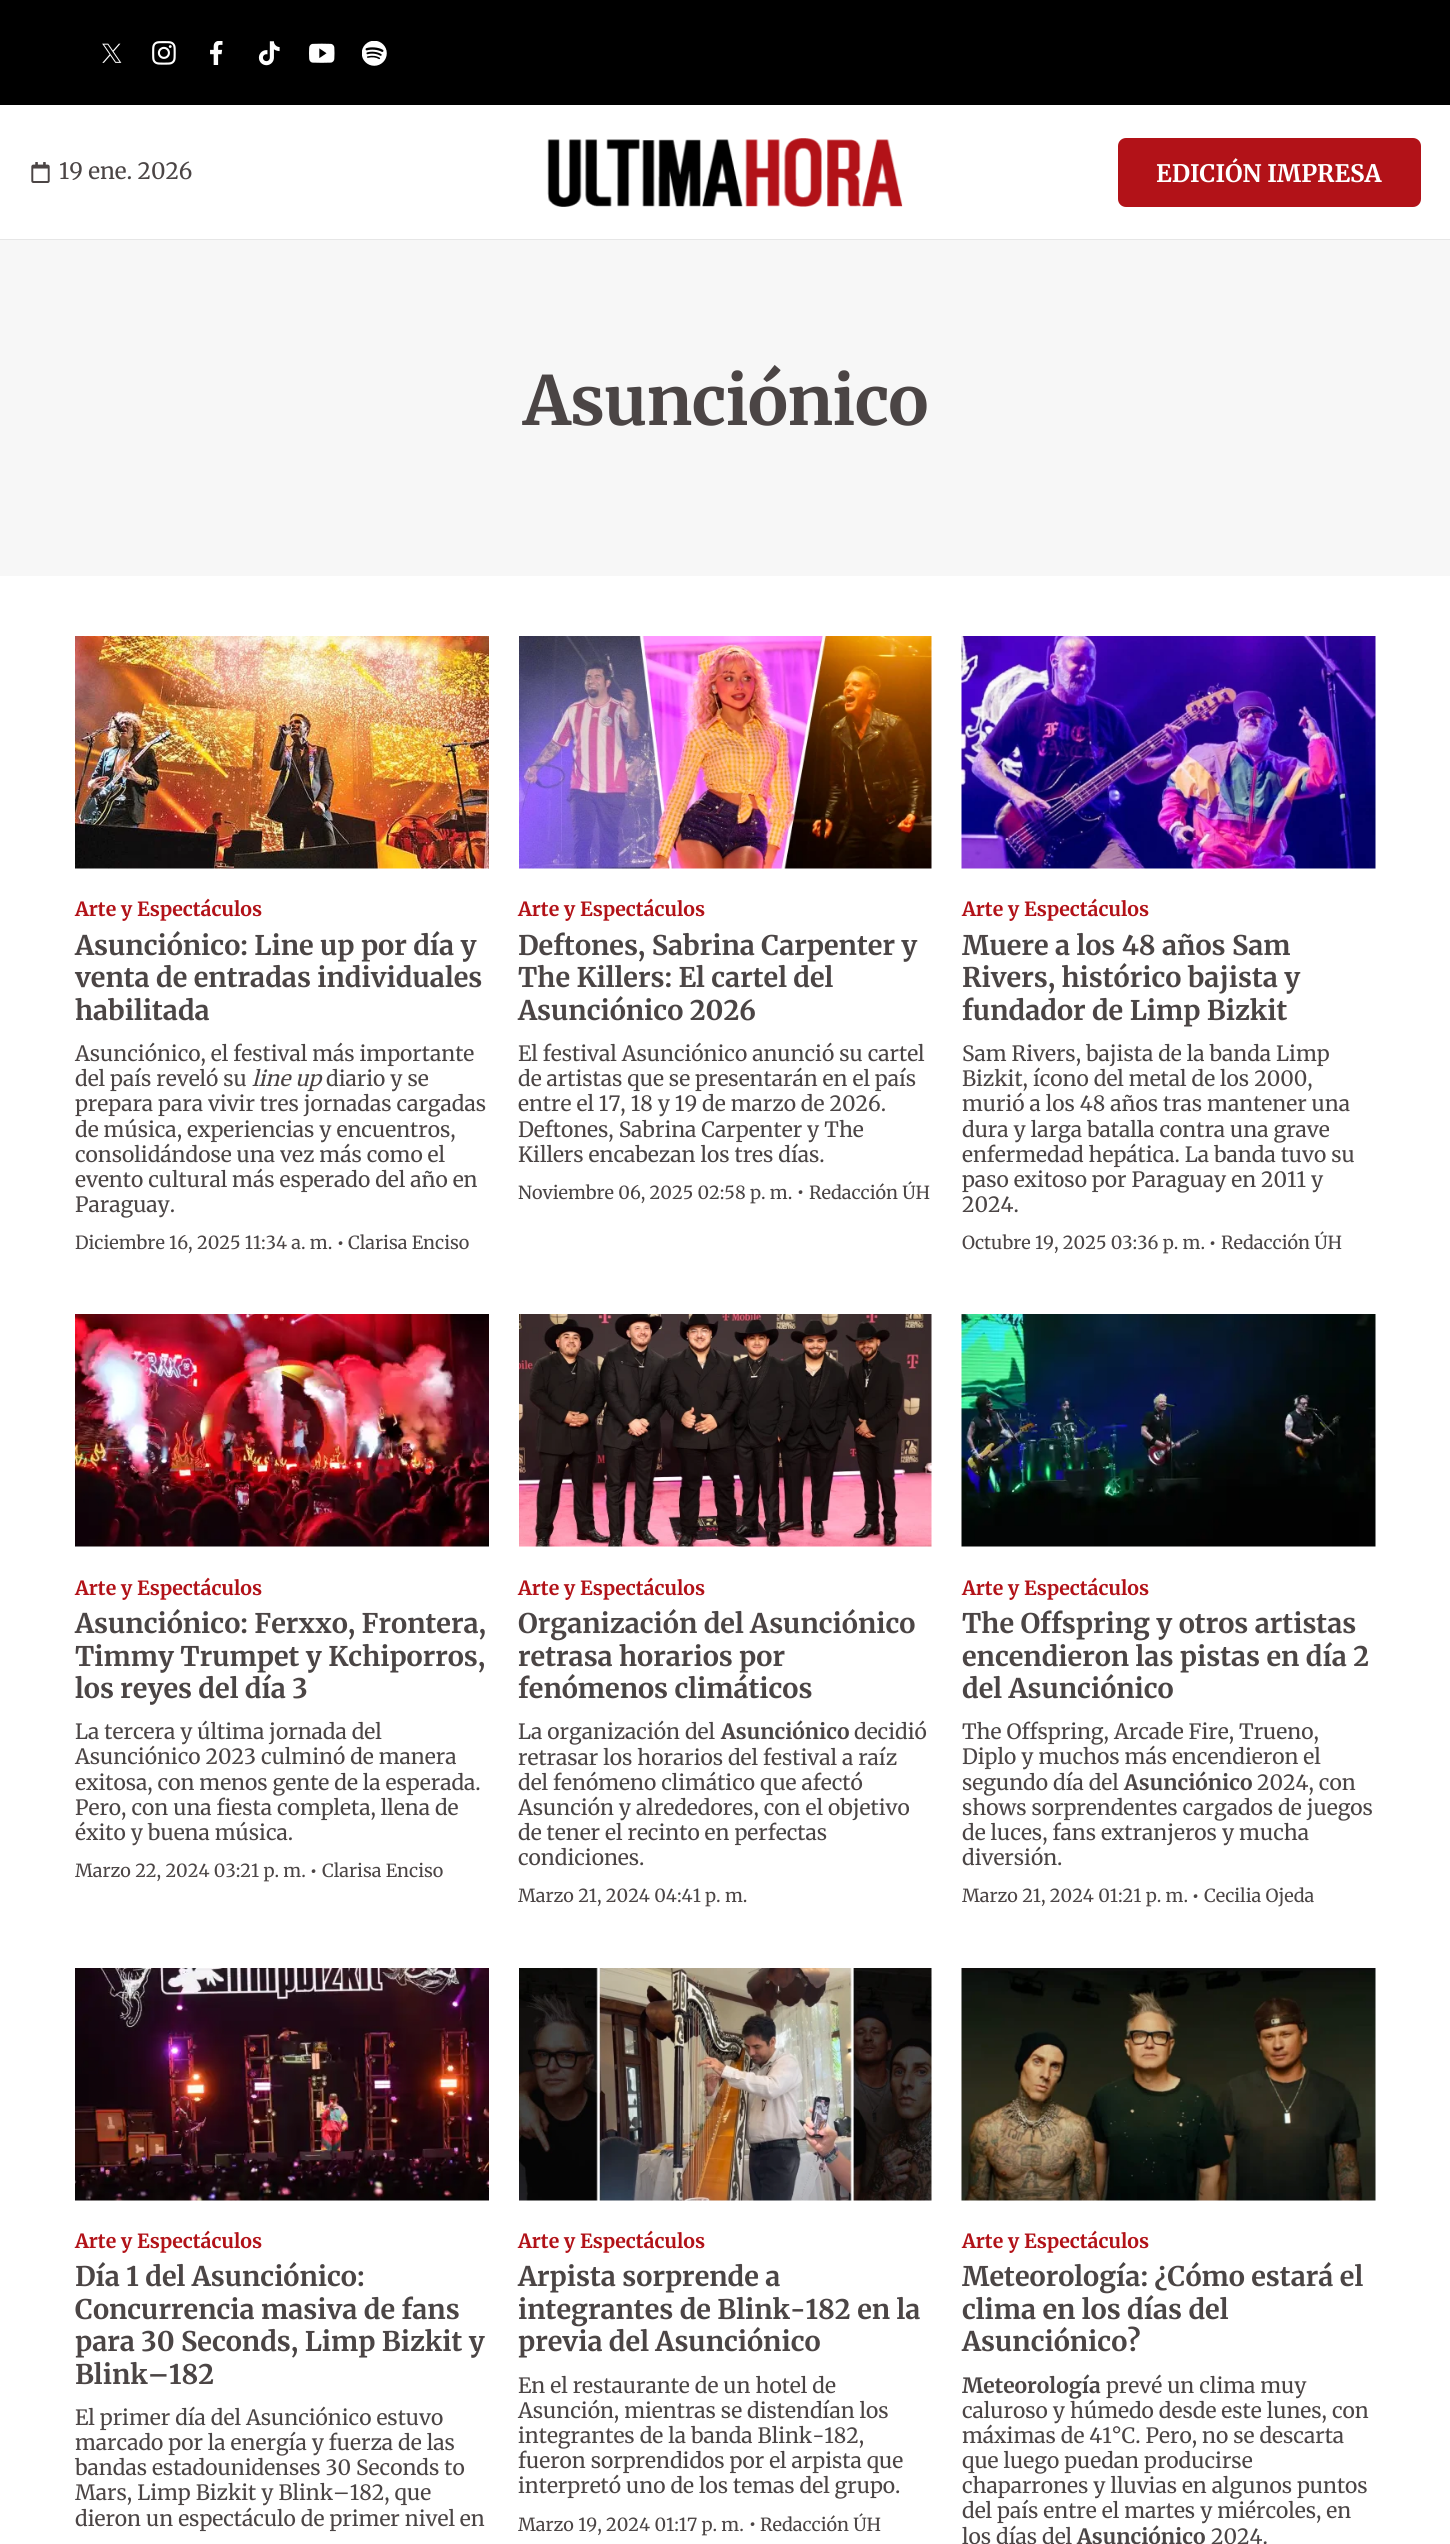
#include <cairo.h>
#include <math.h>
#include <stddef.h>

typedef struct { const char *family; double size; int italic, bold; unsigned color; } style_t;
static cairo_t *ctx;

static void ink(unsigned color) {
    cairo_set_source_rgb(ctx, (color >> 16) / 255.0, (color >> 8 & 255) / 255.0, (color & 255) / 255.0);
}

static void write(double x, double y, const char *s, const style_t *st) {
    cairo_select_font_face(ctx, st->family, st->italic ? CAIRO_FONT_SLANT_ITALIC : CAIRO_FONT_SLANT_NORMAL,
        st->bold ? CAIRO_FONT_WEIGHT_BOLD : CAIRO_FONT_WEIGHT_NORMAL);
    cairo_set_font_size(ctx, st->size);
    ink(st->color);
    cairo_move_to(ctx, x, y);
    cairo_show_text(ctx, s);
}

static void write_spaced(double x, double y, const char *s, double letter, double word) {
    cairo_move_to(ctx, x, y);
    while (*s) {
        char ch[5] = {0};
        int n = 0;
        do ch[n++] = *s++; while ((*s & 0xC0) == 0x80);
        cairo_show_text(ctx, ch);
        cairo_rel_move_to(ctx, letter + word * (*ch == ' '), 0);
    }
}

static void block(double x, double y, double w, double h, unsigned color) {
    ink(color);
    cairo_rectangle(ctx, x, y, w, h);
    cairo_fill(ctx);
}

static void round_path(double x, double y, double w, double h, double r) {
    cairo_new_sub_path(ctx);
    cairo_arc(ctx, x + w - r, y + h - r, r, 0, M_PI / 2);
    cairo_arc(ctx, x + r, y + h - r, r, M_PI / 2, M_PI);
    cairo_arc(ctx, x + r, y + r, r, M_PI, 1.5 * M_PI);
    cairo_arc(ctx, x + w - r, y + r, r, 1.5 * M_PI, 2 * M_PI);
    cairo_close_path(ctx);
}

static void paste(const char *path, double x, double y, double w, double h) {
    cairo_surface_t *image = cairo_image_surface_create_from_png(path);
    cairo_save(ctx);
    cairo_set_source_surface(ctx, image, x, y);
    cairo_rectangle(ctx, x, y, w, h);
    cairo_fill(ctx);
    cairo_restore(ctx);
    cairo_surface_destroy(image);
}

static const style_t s1 = {"Merriweather", 22.5, 0, 0, 0x4b4545};
static const style_t s2 = {"Merriweather", 24, 0, 1, 0xffffff};
static const style_t s3 = {"Merriweather", 19.5, 0, 1, 0xb21218};
static const style_t s4 = {"Merriweather", 27, 0, 1, 0x4b4545};
static const style_t s5 = {"Merriweather", 21, 0, 0, 0x4b4545};
static const style_t s6 = {"Merriweather", 21, 1, 0, 0x4b4545};
static const style_t s7 = {"Merriweather", 18, 0, 0, 0x4b4545};
static const style_t s8 = {"Merriweather", 27, 0, 0, 0x4b4545};
static const style_t s9 = {"Merriweather", 21, 0, 1, 0x4b4545};

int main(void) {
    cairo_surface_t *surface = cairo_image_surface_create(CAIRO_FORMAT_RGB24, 1450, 2544);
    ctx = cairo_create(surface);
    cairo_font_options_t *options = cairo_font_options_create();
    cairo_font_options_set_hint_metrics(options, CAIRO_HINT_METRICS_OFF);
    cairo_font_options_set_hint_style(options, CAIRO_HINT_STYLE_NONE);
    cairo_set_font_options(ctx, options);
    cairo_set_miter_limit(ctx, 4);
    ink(0xffffff);
    cairo_paint(ctx);
    block(0, 0, 1450, 105, 0x000000);
    paste("pic1.png", 102, 43, 20, 20);
    paste("pic2.png", 152, 41, 24, 24);
    paste("pic3.png", 210, 41, 13, 24);
    paste("pic4.png", 258, 41, 22, 25);
    paste("pic5.png", 309, 43, 26, 20);
    paste("pic6.png", 362, 41, 25, 25);
    block(0, 239, 1450, 1, 0xe6e6e6);
    paste("pic7.png", 31, 162, 19, 21);
    write(59, 179, "19 ene. 2026", &s1);
    paste("pic8.png", 547, 138, 356, 69);
    ink(0xb21218);
    round_path(1119, 139, 301, 67, 7);
    cairo_fill_preserve(ctx);
    cairo_stroke(ctx);
    write(1156, 182, "EDICIÓN IMPRESA", &s2);
    block(0, 240, 1450, 336, 0xf7f7f7);
    cairo_set_font_size(ctx, 67.5);
    ink(0x4b4545);
    write_spaced(523, 425, "Asunciónico", -0.75, 0);
    paste("pic9.png", 75, 636, 414, 233);
    write(75, 916, "Arte y Espectáculos", &s3);
    write(75, 955, "Asunciónico: Line up por día y", &s4);
    write(75, 987, "venta de entradas individuales", &s4);
    write(75, 1020, "habilitada", &s4);
    write(75, 1061, "Asunciónico, el festival más importante", &s5);
    write(75, 1086, "del país reveló su", &s5);
    write(252, 1086, "line up", &s6);
    write(326, 1086, "diario y se", &s5);
    write(75, 1111, "prepara para vivir tres jornadas cargadas", &s5);
    write(75, 1137, "de música, experiencias y encuentros,", &s5);
    write(75, 1162, "consolidándose una vez más como el", &s5);
    write(75, 1187, "evento cultural más esperado del año en", &s5);
    write(75, 1212, "Paraguay.", &s5);
    write(75, 1249, "Diciembre 16, 2025 11:34 a. m.", &s7);
    write(339, 1254, "·", &s8);
    write(348, 1249, "Clarisa Enciso", &s7);
    paste("pic10.png", 519, 636, 413, 233);
    write(518, 916, "Arte y Espectáculos", &s3);
    write(518, 955, "Deftones, Sabrina Carpenter y", &s4);
    write(518, 987, "The Killers: El cartel del", &s4);
    write(518, 1020, "Asunciónico 2026", &s4);
    write(518, 1061, "El festival Asunciónico anunció su cartel", &s5);
    write(518, 1086, "de artistas que se presentarán en el país", &s5);
    write(518, 1111, "entre el 17, 18 y 19 de marzo de 2026.", &s5);
    write(518, 1137, "Deftones, Sabrina Carpenter y The", &s5);
    write(518, 1162, "Killers encabezan los tres días.", &s5);
    write(518, 1199, "Noviembre 06, 2025 02:58 p. m.", &s7);
    write(799, 1203, "·", &s8);
    write(809, 1199, "Redacción ÚH", &s7);
    paste("pic11.png", 961, 636, 415, 233);
    write(962, 916, "Arte y Espectáculos", &s3);
    write(962, 955, "Muere a los 48 años Sam", &s4);
    write(962, 987, "Rivers, histórico bajista y", &s4);
    write(962, 1020, "fundador de Limp Bizkit", &s4);
    write(962, 1061, "Sam Rivers, bajista de la banda Limp", &s5);
    write(962, 1086, "Bizkit, ícono del metal de los 2000,", &s5);
    write(962, 1111, "murió a los 48 años tras mantener una", &s5);
    write(962, 1137, "dura y larga batalla contra una grave", &s5);
    write(962, 1162, "enfermedad hepática. La banda tuvo su", &s5);
    write(962, 1187, "paso exitoso por Paraguay en 2011 y", &s5);
    write(962, 1212, "2024.", &s5);
    write(962, 1249, "Octubre 19, 2025 03:36 p. m.", &s7);
    write(1211, 1254, "·", &s8);
    write(1221, 1249, "Redacción ÚH", &s7);
    paste("pic12.png", 75, 1314, 414, 233);
    write(75, 1595, "Arte y Espectáculos", &s3);
    write(75, 1633, "Asunciónico: Ferxxo, Frontera,", &s4);
    write(75, 1666, "Timmy Trumpet y Kchiporros,", &s4);
    write(75, 1698, "los reyes del día 3", &s4);
    write(75, 1739, "La tercera y última jornada del", &s5);
    write(75, 1764, "Asunciónico 2023 culminó de manera", &s5);
    write(75, 1790, "exitosa, con menos gente de la esperada.", &s5);
    write(75, 1815, "Pero, con una fiesta completa, llena de", &s5);
    write(75, 1840, "éxito y buena música.", &s5);
    write(75, 1877, "Marzo 22, 2024 03:21 p. m.", &s7);
    write(312, 1882, "·", &s8);
    write(322, 1877, "Clarisa Enciso", &s7);
    paste("pic13.png", 519, 1314, 413, 233);
    write(518, 1595, "Arte y Espectáculos", &s3);
    write(518, 1633, "Organización del Asunciónico", &s4);
    write(518, 1666, "retrasa horarios por", &s4);
    write(518, 1698, "fenómenos climáticos", &s4);
    write(518, 1739, "La organización del", &s5);
    write(721, 1739, "Asunciónico", &s9);
    write(854, 1739, "decidió", &s5);
    write(518, 1765, "retrasar los horarios del festival a raíz", &s5);
    write(518, 1790, "del fenómeno climático que afectó", &s5);
    write(518, 1815, "Asunción y alrededores, con el objetivo", &s5);
    write(518, 1840, "de tener el recinto en perfectas", &s5);
    write(518, 1865, "condiciones.", &s5);
    write(518, 1902, "Marzo 21, 2024 04:41 p. m.", &s7);
    paste("pic14.png", 961, 1314, 415, 233);
    write(962, 1595, "Arte y Espectáculos", &s3);
    write(962, 1633, "The Offspring y otros artistas", &s4);
    write(962, 1666, "encendieron las pistas en día 2", &s4);
    write(962, 1698, "del Asunciónico", &s4);
    write(962, 1739, "The Offspring, Arcade Fire, Trueno,", &s5);
    write(962, 1764, "Diplo y muchos más encendieron el", &s5);
    write(962, 1790, "segundo día del", &s5);
    write(1124, 1790, "Asunciónico", &s9);
    write(1257, 1790, "2024, con", &s5);
    write(962, 1815, "shows sorprendentes cargados de juegos", &s5);
    write(962, 1840, "de luces, fans extranjeros y mucha", &s5);
    write(962, 1865, "diversión.", &s5);
    write(962, 1902, "Marzo 21, 2024 01:21 p. m.", &s7);
    write(1194, 1907, "·", &s8);
    write(1204, 1902, "Cecilia Ojeda", &s7);
    paste("pic15.png", 75, 1968, 414, 233);
    write(75, 2248, "Arte y Espectáculos", &s3);
    write(75, 2286, "Día 1 del Asunciónico:", &s4);
    write(75, 2319, "Concurrencia masiva de fans", &s4);
    write(75, 2351, "para 30 Seconds, Limp Bizkit y", &s4);
    write(75, 2384, "Blink–182", &s4);
    write(75, 2425, "El primer día del Asunciónico estuvo", &s5);
    write(75, 2450, "marcado por la energía y fuerza de las", &s5);
    write(75, 2475, "bandas estadounidenses 30 Seconds to", &s5);
    write(75, 2500, "Mars, Limp Bizkit y Blink–182, que", &s5);
    write(75, 2526, "dieron un espectáculo de primer nivel en", &s5);
    paste("pic16.png", 519, 1968, 413, 233);
    write(518, 2248, "Arte y Espectáculos", &s3);
    write(518, 2286, "Arpista sorprende a", &s4);
    write(518, 2319, "integrantes de Blink-182 en la", &s4);
    write(518, 2351, "previa del Asunciónico", &s4);
    write(518, 2393, "En el restaurante de un hotel de", &s5);
    write(518, 2418, "Asunción, mientras se distendían los", &s5);
    write(518, 2443, "integrantes de la banda Blink-182,", &s5);
    write(518, 2468, "fueron sorprendidos por el arpista que", &s5);
    write(518, 2493, "interpretó uno de los temas del grupo.", &s5);
    write(518, 2531, "Marzo 19, 2024 01:17 p. m.", &s7);
    write(751, 2535, "·", &s8);
    write(760, 2531, "Redacción ÚH", &s7);
    paste("pic17.png", 961, 1968, 415, 233);
    write(962, 2248, "Arte y Espectáculos", &s3);
    write(962, 2286, "Meteorología: ¿Cómo estará el", &s4);
    write(962, 2319, "clima en los días del", &s4);
    write(962, 2351, "Asunciónico?", &s4);
    write(962, 2393, "Meteorología", &s9);
    write(1106, 2393, "prevé un clima muy", &s5);
    write(962, 2418, "caluroso y húmedo desde este lunes, con", &s5);
    write(962, 2443, "máximas de 41°C. Pero, no se descarta", &s5);
    write(962, 2468, "que luego puedan producirse", &s5);
    write(962, 2493, "chaparrones y lluvias en algunos puntos", &s5);
    write(962, 2518, "del país entre el martes y miércoles, en", &s5);
    write(962, 2544, "los días del", &s5);
    write(1077, 2544, "Asunciónico", &s9);
    write(1211, 2544, "2024.", &s5);
    cairo_surface_write_to_png(surface, "screenshot.png");
    cairo_font_options_destroy(options);
    cairo_destroy(ctx);
    cairo_surface_destroy(surface);
    return 0;
}
